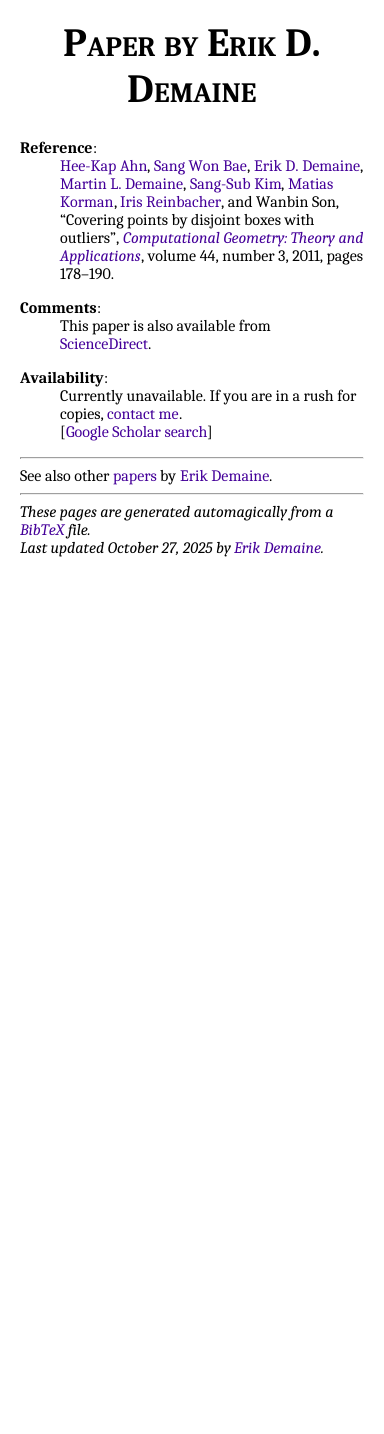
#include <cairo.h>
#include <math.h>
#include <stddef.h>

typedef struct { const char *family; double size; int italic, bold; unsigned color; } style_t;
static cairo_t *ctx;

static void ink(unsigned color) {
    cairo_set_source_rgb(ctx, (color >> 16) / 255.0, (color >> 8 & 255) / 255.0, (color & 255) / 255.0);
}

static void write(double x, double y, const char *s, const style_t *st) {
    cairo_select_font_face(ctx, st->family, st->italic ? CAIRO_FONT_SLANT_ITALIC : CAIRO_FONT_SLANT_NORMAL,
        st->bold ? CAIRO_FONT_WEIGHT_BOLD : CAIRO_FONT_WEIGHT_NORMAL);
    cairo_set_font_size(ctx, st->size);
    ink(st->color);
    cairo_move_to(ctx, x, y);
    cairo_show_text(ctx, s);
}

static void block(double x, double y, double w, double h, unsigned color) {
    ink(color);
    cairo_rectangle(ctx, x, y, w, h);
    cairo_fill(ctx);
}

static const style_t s1 = {"Caladea", 40, 0, 1, 0x000000};
static const style_t s2 = {"Caladea", 28, 0, 1, 0x000000};
static const style_t s3 = {"Caladea", 16, 0, 1, 0x000000};
static const style_t s4 = {"Caladea", 16, 0, 0, 0x000000};
static const style_t s5 = {"Caladea", 16, 0, 0, 0x440099};
static const style_t s6 = {"Caladea", 16, 1, 0, 0x440099};
static const style_t s7 = {"Caladea", 16, 1, 0, 0x000000};

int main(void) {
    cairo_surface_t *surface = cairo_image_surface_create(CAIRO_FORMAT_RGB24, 384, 1434);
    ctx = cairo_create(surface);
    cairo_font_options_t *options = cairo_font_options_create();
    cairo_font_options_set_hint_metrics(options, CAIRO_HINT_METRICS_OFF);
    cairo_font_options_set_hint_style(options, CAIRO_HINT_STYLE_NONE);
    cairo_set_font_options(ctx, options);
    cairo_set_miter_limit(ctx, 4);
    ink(0xffffff);
    cairo_paint(ctx);
    write(63, 56, "P", &s1);
    write(87, 56, "APER", &s2);
    write(164, 56, "BY", &s2);
    write(207, 56, "E", &s1);
    write(229, 56, "RIK", &s2);
    write(285, 56, "D.", &s1);
    write(127, 102, "D", &s1);
    write(154, 102, "EMAINE", &s2);
    write(20, 153, "Reference", &s3);
    write(93, 153, ":", &s4);
    write(60, 171, "Hee-Kap Ahn", &s5);
    write(147, 171, ",", &s4);
    write(154, 171, "Sang Won Bae", &s5);
    write(247, 171, ",", &s4);
    write(254, 171, "Erik D. Demaine", &s5);
    write(360, 171, ",", &s4);
    write(60, 189, "Martin L. Demaine", &s5);
    write(183, 189, ",", &s4);
    write(190, 189, "Sang-Sub Kim", &s5);
    write(281, 189, ",", &s4);
    write(288, 189, "Matias", &s5);
    write(60, 207, "Korman", &s5);
    write(114, 207, ",", &s4);
    write(120, 207, "Iris Reinbacher", &s5);
    write(221, 207, ", and Wanbin Son,", &s4);
    write(60, 225, "“Covering points by disjoint boxes with", &s4);
    write(60, 243, "outliers”,", &s4);
    write(123, 243, "Computational Geometry: Theory and", &s6);
    write(60, 261, "Applications", &s6);
    write(141, 261, ", volume 44, number 3, 2011, pages", &s4);
    write(60, 279, "178–190.", &s4);
    write(20, 313, "Comments", &s3);
    write(97, 313, ":", &s4);
    write(60, 331, "This paper is also available from", &s4);
    write(60, 349, "ScienceDirect", &s5);
    write(148, 349, ".", &s4);
    write(20, 383, "Availability", &s3);
    write(104, 383, ":", &s4);
    write(60, 401, "Currently unavailable. If you are in a rush for", &s4);
    write(60, 419, "copies,", &s4);
    write(107, 419, "contact me", &s5);
    write(179, 419, ".", &s4);
    write(60, 437, "[", &s4);
    write(66, 437, "Google Scholar search", &s5);
    write(207, 437, "]", &s4);
    block(20, 457, 344, 1, 0x9f9f9f);
    block(363, 457, 1, 2, 0xeeeeee);
    block(20, 458, 344, 1, 0xeeeeee);
    block(20, 457, 1, 2, 0x9f9f9f);
    write(20, 481, "See also other", &s4);
    write(113, 481, "papers", &s5);
    write(160, 481, "by", &s4);
    write(180, 481, "Erik Demaine", &s5);
    write(269, 481, ".", &s4);
    block(20, 493, 344, 1, 0x9f9f9f);
    block(363, 493, 1, 2, 0xeeeeee);
    block(20, 494, 344, 1, 0xeeeeee);
    block(20, 493, 1, 2, 0x9f9f9f);
    write(20, 517, "These pages are generated automagically from a", &s7);
    write(20, 535, "BibTeX", &s6);
    write(68, 535, "file.", &s7);
    write(20, 553, "Last updated October 27, 2025 by", &s7);
    write(234, 553, "Erik Demaine", &s6);
    write(321, 553, ".", &s7);
    cairo_surface_write_to_png(surface, "screenshot.png");
    cairo_font_options_destroy(options);
    cairo_destroy(ctx);
    cairo_surface_destroy(surface);
    return 0;
}
